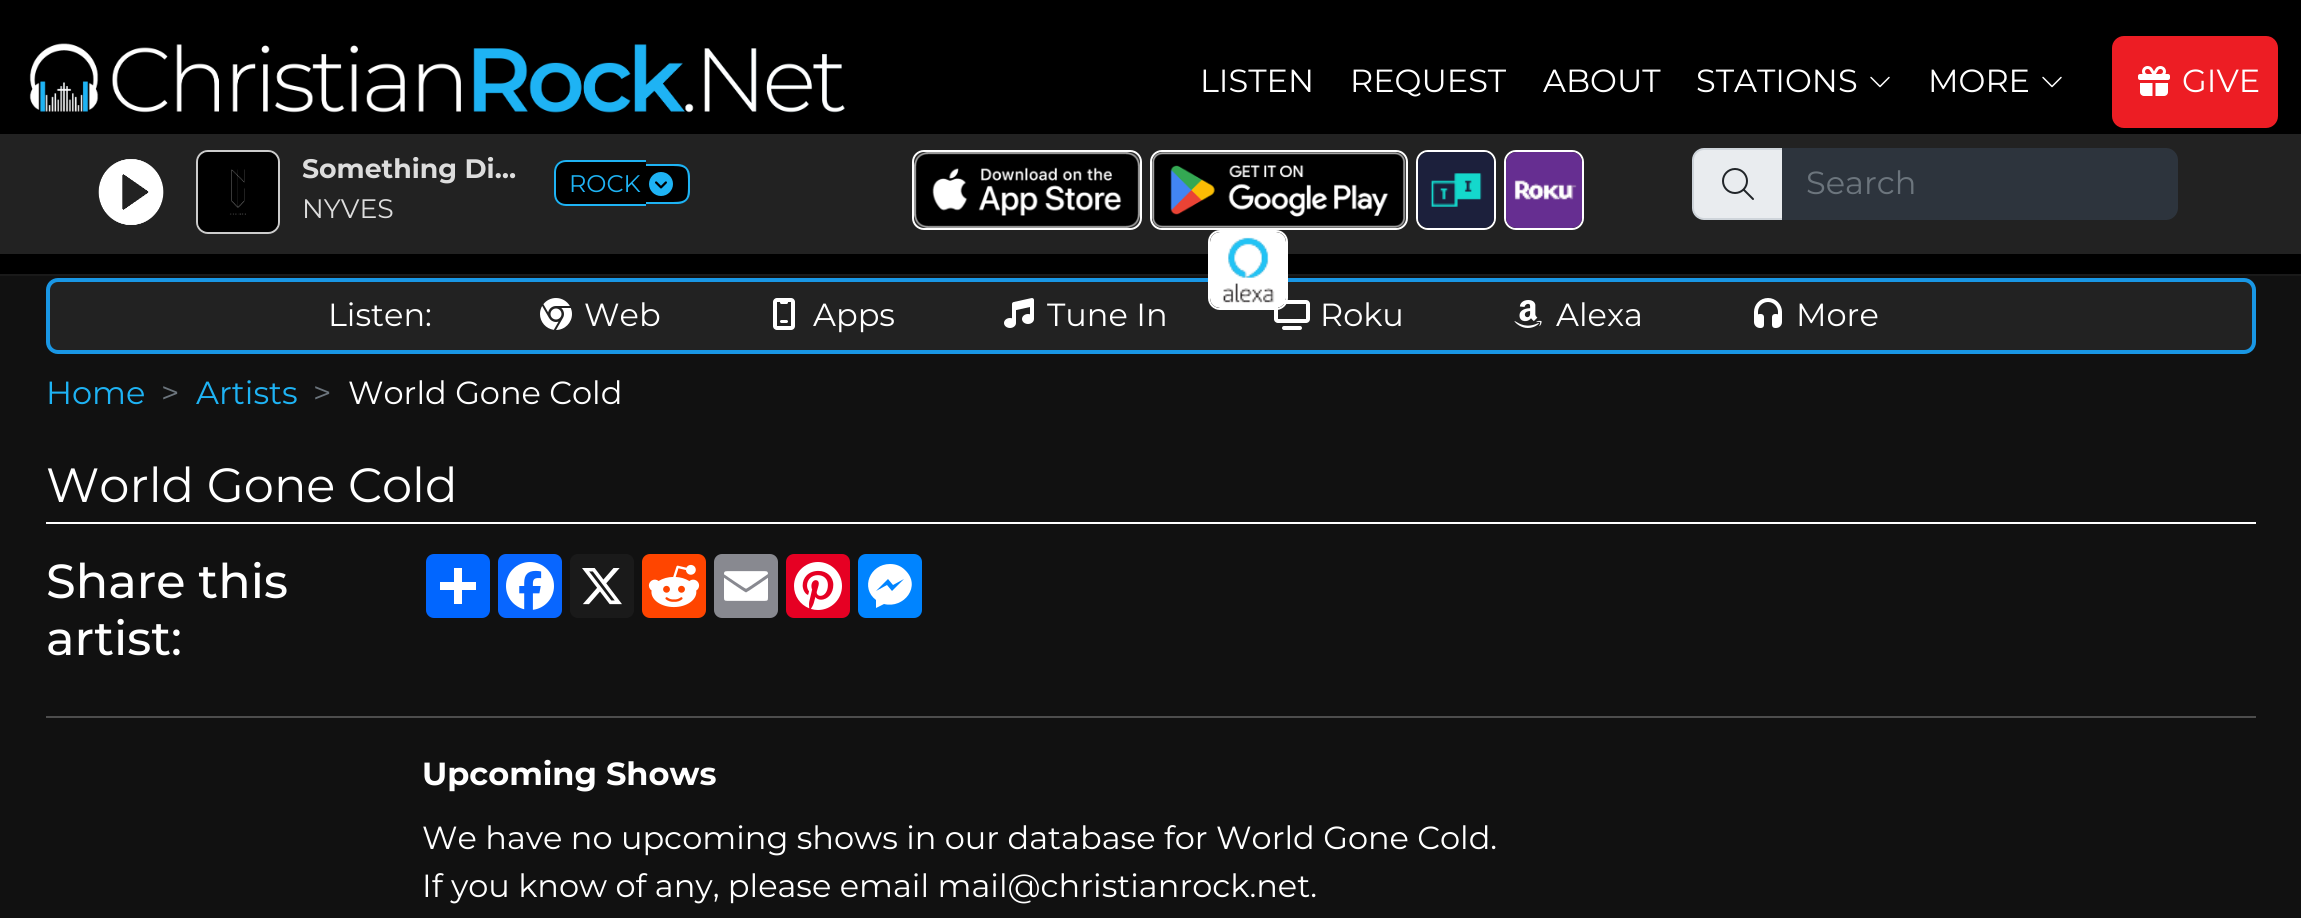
#include <cairo.h>
#include <math.h>
#include <stddef.h>

typedef struct { const char *family; double size; int italic, bold; unsigned color; } style_t;
static cairo_t *ctx;

static void ink(unsigned color) {
    cairo_set_source_rgb(ctx, (color >> 16) / 255.0, (color >> 8 & 255) / 255.0, (color & 255) / 255.0);
}

static void write(double x, double y, const char *s, const style_t *st) {
    cairo_select_font_face(ctx, st->family, st->italic ? CAIRO_FONT_SLANT_ITALIC : CAIRO_FONT_SLANT_NORMAL,
        st->bold ? CAIRO_FONT_WEIGHT_BOLD : CAIRO_FONT_WEIGHT_NORMAL);
    cairo_set_font_size(ctx, st->size);
    ink(st->color);
    cairo_move_to(ctx, x, y);
    cairo_show_text(ctx, s);
}

static void block(double x, double y, double w, double h, unsigned color) {
    ink(color);
    cairo_rectangle(ctx, x, y, w, h);
    cairo_fill(ctx);
}

static void round_path(double x, double y, double w, double h, double r) {
    cairo_new_sub_path(ctx);
    cairo_arc(ctx, x + w - r, y + h - r, r, 0, M_PI / 2);
    cairo_arc(ctx, x + r, y + h - r, r, M_PI / 2, M_PI);
    cairo_arc(ctx, x + r, y + r, r, M_PI, 1.5 * M_PI);
    cairo_arc(ctx, x + w - r, y + r, r, 1.5 * M_PI, 2 * M_PI);
    cairo_close_path(ctx);
}

static void paste(const char *path, double x, double y, double w, double h) {
    cairo_surface_t *image = cairo_image_surface_create_from_png(path);
    cairo_save(ctx);
    cairo_set_source_surface(ctx, image, x, y);
    cairo_rectangle(ctx, x, y, w, h);
    cairo_fill(ctx);
    cairo_restore(ctx);
    cairo_surface_destroy(image);
}

static const style_t s1 = {"Montserrat", 32, 0, 0, 0xffffff};
static const style_t s2 = {"Montserrat", 26.75, 0, 1, 0xdddddd};
static const style_t s3 = {"Montserrat", 26.75, 0, 0, 0xdddddd};
static const style_t s4 = {"Montserrat", 24, 0, 0, 0x1eb3f4};
static const style_t s5 = {"Montserrat", 32, 0, 0, 0x6c757d};
static const style_t s6 = {"Montserrat", 32, 0, 0, 0x1eb3f4};
static const style_t s7 = {"Montserrat", 48, 0, 0, 0xffffff};
static const style_t s8 = {"Montserrat Medium", 47.75, 0, 0, 0xffffff};
static const style_t s9 = {"Montserrat", 32, 0, 1, 0xffffff};

int main(void) {
    cairo_surface_t *surface = cairo_image_surface_create(CAIRO_FORMAT_RGB24, 2301, 918);
    ctx = cairo_create(surface);
    cairo_font_options_t *options = cairo_font_options_create();
    cairo_font_options_set_hint_metrics(options, CAIRO_HINT_METRICS_OFF);
    cairo_font_options_set_hint_style(options, CAIRO_HINT_STYLE_NONE);
    cairo_set_font_options(ctx, options);
    cairo_set_miter_limit(ctx, 4);
    ink(0x111111);
    cairo_paint(ctx);
    block(0, 0, 2301, 274, 0x000000);
    block(0, 274, 2301, 2, 0x1a1a1a);
    paste("pic1.png", 29, 43, 816, 70);
    write(1200, 92, "LISTEN", &s1);
    write(1350, 92, "REQUEST", &s1);
    write(1543, 92, "ABOUT", &s1);
    write(1696, 92, "STATIONS", &s1);
    paste("pic2.png", 1870, 76, 20, 12);
    write(1928, 92, "MORE", &s1);
    paste("pic2.png", 2042, 76, 20, 12);
    ink(0xed1d24);
    round_path(2113, 37, 164, 90, 11);
    cairo_fill_preserve(ctx);
    cairo_stroke(ctx);
    paste("pic3.png", 2138, 66, 32, 30);
    write(2182, 92, "GIVE", &s1);
    block(0, 134, 2301, 120, 0x222222);
    paste("pic4.png", 98, 159, 66, 66);
    round_path(197, 151, 82, 82, 11);
    ink(0xcccccc);
    cairo_stroke(ctx);
    paste("pic5.png", 198, 152, 80, 80);
    write(302, 178, "Something Di…", &s2);
    write(302, 218, "NYVES", &s3);
    ink(0x000000);
    cairo_new_path(ctx);
    cairo_move_to(ctx, 566, 160);
    cairo_line_to(ctx, 646, 160);
    cairo_line_to(ctx, 646, 206);
    cairo_line_to(ctx, 566, 206);
    cairo_curve_to(ctx, 559.5, 206, 554, 200.5, 554, 194);
    cairo_line_to(ctx, 554, 172);
    cairo_curve_to(ctx, 554, 165.5, 559.5, 160, 566, 160);
    cairo_close_path(ctx);
    cairo_fill(ctx);
    ink(0x1eb3f4);
    cairo_set_fill_rule(ctx, CAIRO_FILL_RULE_EVEN_ODD);
    cairo_new_path(ctx);
    cairo_move_to(ctx, 566, 160);
    cairo_line_to(ctx, 646, 160);
    cairo_line_to(ctx, 646, 206);
    cairo_line_to(ctx, 566, 206);
    cairo_curve_to(ctx, 559, 206, 554, 201, 554, 194);
    cairo_line_to(ctx, 554, 172);
    cairo_curve_to(ctx, 554, 165, 559, 160, 566, 160);
    cairo_close_path(ctx);
    cairo_move_to(ctx, 566, 162);
    cairo_line_to(ctx, 646, 162);
    cairo_line_to(ctx, 646, 204);
    cairo_line_to(ctx, 566, 204);
    cairo_curve_to(ctx, 560, 204, 556, 200, 556, 194);
    cairo_line_to(ctx, 556, 172);
    cairo_curve_to(ctx, 556, 166, 560, 162, 566, 162);
    cairo_close_path(ctx);
    cairo_fill(ctx);
    ink(0x000000);
    cairo_new_path(ctx);
    cairo_move_to(ctx, 646, 164);
    cairo_line_to(ctx, 678, 164);
    cairo_curve_to(ctx, 684.5, 164, 690, 169.5, 690, 176);
    cairo_line_to(ctx, 690, 192);
    cairo_curve_to(ctx, 690, 198.5, 684.5, 204, 678, 204);
    cairo_line_to(ctx, 646, 204);
    cairo_close_path(ctx);
    cairo_fill(ctx);
    ink(0x1eb3f4);
    cairo_new_path(ctx);
    cairo_move_to(ctx, 646, 164);
    cairo_line_to(ctx, 678, 164);
    cairo_curve_to(ctx, 685, 164, 690, 169, 690, 176);
    cairo_line_to(ctx, 690, 192);
    cairo_curve_to(ctx, 690, 199, 685, 204, 678, 204);
    cairo_line_to(ctx, 646, 204);
    cairo_close_path(ctx);
    cairo_move_to(ctx, 646, 166);
    cairo_line_to(ctx, 673, 166);
    cairo_curve_to(ctx, 688, 166, 688, 170, 688, 184);
    cairo_curve_to(ctx, 688, 198, 688, 202, 673, 202);
    cairo_line_to(ctx, 646, 202);
    cairo_close_path(ctx);
    cairo_fill(ctx);
    write(569, 192, "ROCK", &s4);
    paste("pic6.png", 649, 172, 24, 24);
    round_path(913, 151, 228, 78, 11);
    ink(0xffffff);
    cairo_stroke(ctx);
    round_path(1151, 151, 256, 78, 11);
    cairo_stroke(ctx);
    round_path(1417, 151, 78, 78, 11);
    cairo_stroke(ctx);
    paste("pic7.png", 1418, 152, 76, 76);
    round_path(1505, 151, 78, 78, 11);
    cairo_stroke(ctx);
    paste("pic8.png", 1506, 152, 76, 76);
    paste("pic9.png", 914, 152, 226, 76);
    paste("pic10.png", 1152, 152, 254, 76);
    ink(0x222222);
    round_path(48, 280, 2206, 72, 10);
    cairo_fill_preserve(ctx);
    ink(0x1997e5);
    cairo_set_line_width(ctx, 4);
    cairo_stroke(ctx);
    paste("pic16.png", 1274, 300, 36, 30);
    round_path(1209, 231, 78, 78, 11);
    ink(0xffffff);
    cairo_set_line_width(ctx, 2);
    cairo_stroke(ctx);
    paste("pic11.png", 1210, 232, 76, 76);
    ink(0xe9ecef);
    cairo_new_path(ctx);
    cairo_move_to(ctx, 1704, 149);
    cairo_line_to(ctx, 1783, 149);
    cairo_line_to(ctx, 1783, 219);
    cairo_line_to(ctx, 1704, 219);
    cairo_curve_to(ctx, 1698, 219, 1693, 214, 1693, 208);
    cairo_line_to(ctx, 1693, 160);
    cairo_curve_to(ctx, 1693, 154, 1698, 149, 1704, 149);
    cairo_close_path(ctx);
    cairo_fill_preserve(ctx);
    ink(0xced4da);
    cairo_stroke(ctx);
    paste("pic12.png", 1722, 168, 32, 32);
    ink(0x2d343d);
    cairo_new_path(ctx);
    cairo_move_to(ctx, 1782, 148);
    cairo_line_to(ctx, 2166, 148);
    cairo_curve_to(ctx, 2172.5, 148, 2178, 153.5, 2178, 160);
    cairo_line_to(ctx, 2178, 208);
    cairo_curve_to(ctx, 2178, 214.5, 2172.5, 220, 2166, 220);
    cairo_line_to(ctx, 1782, 220);
    cairo_close_path(ctx);
    cairo_fill(ctx);
    write(1806, 194, "Search", &s5);
    write(328, 326, "Listen:", &s1);
    paste("pic13.png", 540, 298, 32, 32);
    write(584, 326, "Web", &s1);
    paste("pic14.png", 773, 298, 22, 32);
    write(813, 326, "Apps", &s1);
    paste("pic15.png", 1004, 298, 30, 30);
    write(1047, 326, "Tune In", &s1);
    write(1320, 326, "Roku", &s1);
    paste("pic17.png", 1514, 300, 28, 28);
    write(1556, 326, "Alexa", &s1);
    paste("pic18.png", 1754, 298, 28, 30);
    write(1796, 326, "More", &s1);
    write(46, 404, "Home", &s6);
    write(161, 404, ">", &s5);
    write(196, 404, "Artists", &s6);
    write(313, 404, ">", &s5);
    write(348, 404, "World Gone Cold", &s1);
    block(46, 522, 2210, 2, 0xffffff);
    write(46, 502, "World Gone Cold", &s7);
    write(46, 598, "Share this", &s8);
    write(46, 655, "artist:", &s8);
    ink(0x0166ff);
    round_path(426, 554, 64, 64, 8);
    cairo_fill(ctx);
    block(454, 568, 8, 36, 0xffffff);
    block(440, 582, 36, 8, 0xffffff);
    ink(0x0866ff);
    round_path(498, 554, 64, 64, 8);
    cairo_fill(ctx);
    paste("pic19.png", 506, 562, 48, 48);
    ink(0x1a1a1a);
    round_path(570, 554, 64, 64, 8);
    cairo_fill(ctx);
    paste("pic20.png", 582, 568, 40, 37);
    ink(0xff4500);
    round_path(642, 554, 64, 64, 8);
    cairo_fill(ctx);
    paste("pic21.png", 648, 564, 52, 44);
    ink(0x888990);
    round_path(714, 554, 64, 64, 8);
    cairo_fill(ctx);
    paste("pic22.png", 724, 571, 44, 30);
    ink(0xe60023);
    round_path(786, 554, 64, 64, 8);
    cairo_fill(ctx);
    paste("pic23.png", 794, 562, 48, 48);
    ink(0x0084ff);
    round_path(858, 554, 64, 64, 8);
    cairo_fill(ctx);
    ink(0xffffff);
    cairo_set_fill_rule(ctx, CAIRO_FILL_RULE_WINDING);
    cairo_new_path(ctx);
    cairo_move_to(ctx, 890, 564);
    cairo_curve_to(ctx, 870, 564, 860, 588, 876, 600);
    cairo_line_to(ctx, 876, 608);
    cairo_line_to(ctx, 884, 604);
    cairo_curve_to(ctx, 904, 609, 922, 586, 905, 570);
    cairo_curve_to(ctx, 901, 566, 896, 564, 890, 564);
    cairo_move_to(ctx, 892, 591);
    cairo_line_to(ctx, 887, 585);
    cairo_line_to(ctx, 876, 591);
    cairo_line_to(ctx, 888, 579);
    cairo_line_to(ctx, 893, 585);
    cairo_line_to(ctx, 904, 579);
    cairo_close_path(ctx);
    cairo_fill(ctx);
    block(46, 716, 2210, 2, 0x4d4d4d);
    write(422, 785, "Upcoming Shows", &s9);
    write(422, 849, "We have no upcoming shows in our database for World Gone Cold.", &s1);
    write(422, 897, "If you know of any, please email mail@christianrock.net.", &s1);
    cairo_surface_write_to_png(surface, "screenshot.png");
    cairo_font_options_destroy(options);
    cairo_destroy(ctx);
    cairo_surface_destroy(surface);
    return 0;
}
